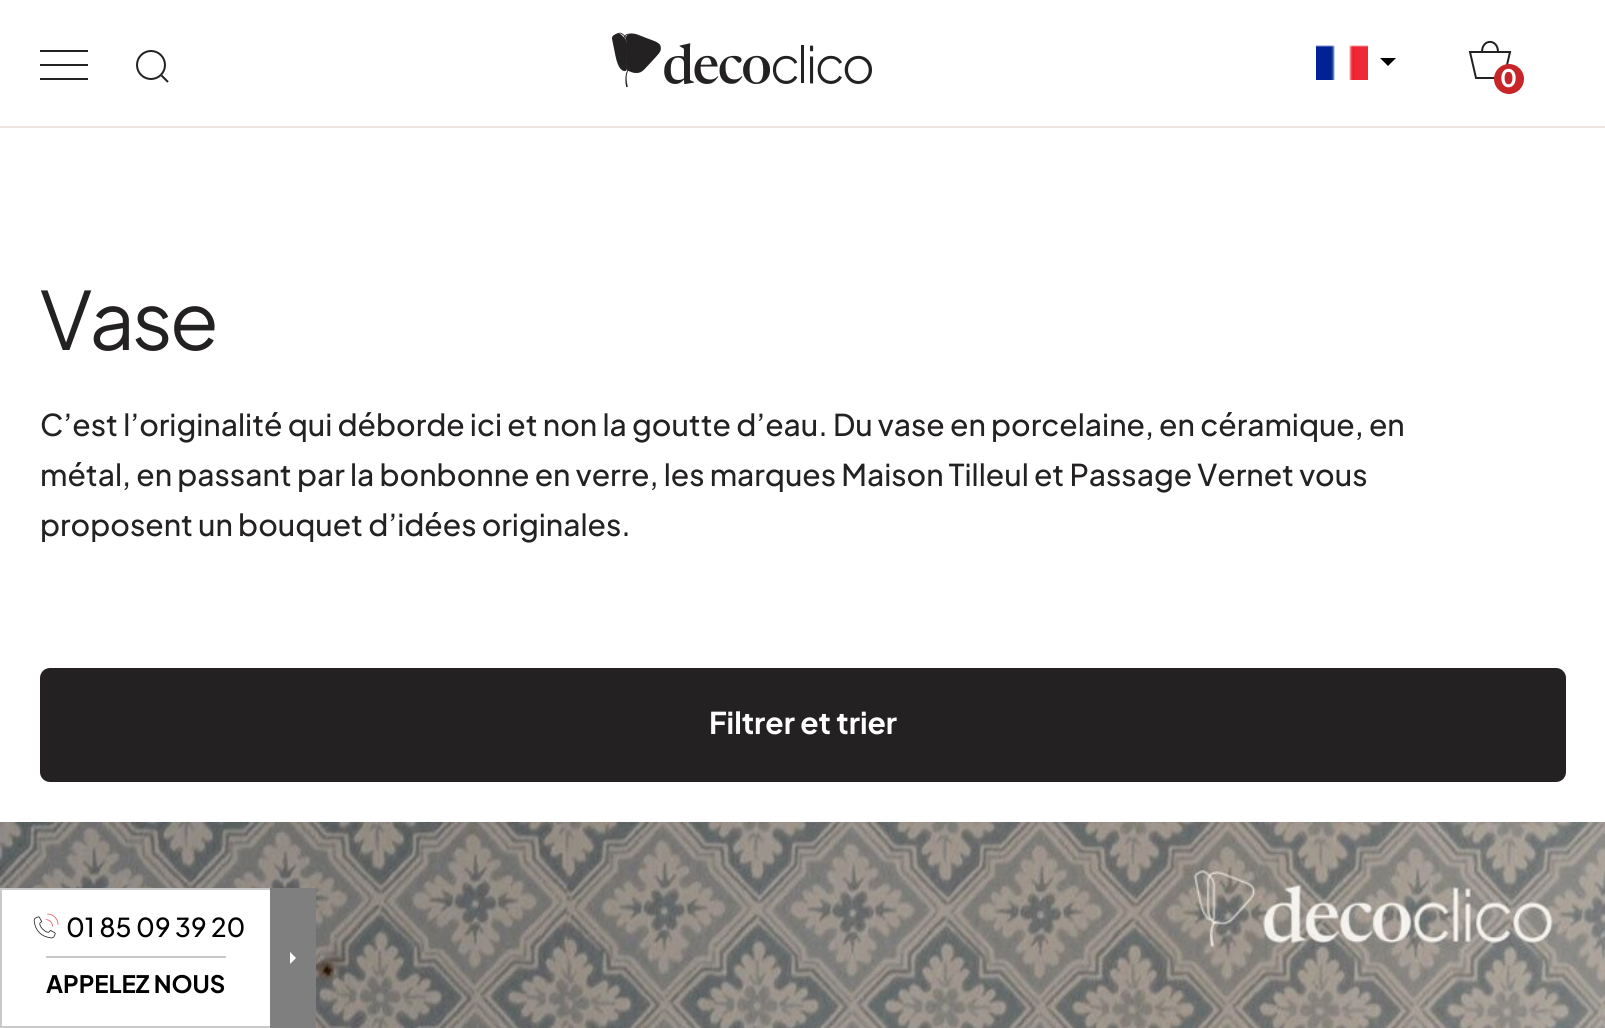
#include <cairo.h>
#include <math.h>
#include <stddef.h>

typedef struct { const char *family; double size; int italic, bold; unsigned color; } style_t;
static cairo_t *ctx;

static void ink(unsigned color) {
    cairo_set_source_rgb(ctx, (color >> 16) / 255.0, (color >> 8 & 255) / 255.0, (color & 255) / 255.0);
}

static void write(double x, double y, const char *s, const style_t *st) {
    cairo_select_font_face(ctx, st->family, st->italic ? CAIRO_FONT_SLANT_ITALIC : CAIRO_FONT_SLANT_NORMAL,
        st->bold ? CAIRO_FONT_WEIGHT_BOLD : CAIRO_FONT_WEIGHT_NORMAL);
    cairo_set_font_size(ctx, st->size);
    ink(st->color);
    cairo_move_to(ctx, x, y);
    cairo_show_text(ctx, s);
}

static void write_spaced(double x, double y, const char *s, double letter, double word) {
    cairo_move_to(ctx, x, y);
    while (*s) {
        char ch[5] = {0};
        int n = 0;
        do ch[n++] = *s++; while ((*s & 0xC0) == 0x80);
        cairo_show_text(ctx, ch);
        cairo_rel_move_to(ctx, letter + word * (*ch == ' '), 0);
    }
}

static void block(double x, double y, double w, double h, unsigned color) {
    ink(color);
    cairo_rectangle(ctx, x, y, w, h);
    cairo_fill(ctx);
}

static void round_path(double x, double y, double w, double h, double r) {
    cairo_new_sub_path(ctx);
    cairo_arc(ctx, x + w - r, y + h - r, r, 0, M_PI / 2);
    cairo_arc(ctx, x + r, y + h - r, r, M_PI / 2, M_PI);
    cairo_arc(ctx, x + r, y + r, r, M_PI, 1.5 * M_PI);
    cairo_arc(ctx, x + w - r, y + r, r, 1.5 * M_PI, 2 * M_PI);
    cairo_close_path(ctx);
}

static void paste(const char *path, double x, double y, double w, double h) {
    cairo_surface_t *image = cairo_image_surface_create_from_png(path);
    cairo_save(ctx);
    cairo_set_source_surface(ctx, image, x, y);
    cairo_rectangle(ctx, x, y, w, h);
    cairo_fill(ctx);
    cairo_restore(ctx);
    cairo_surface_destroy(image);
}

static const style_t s1 = {"Plus Jakarta Sans", 24, 0, 1, 0xffffff};
static const style_t s2 = {"Plus Jakarta Sans Medium", 30, 0, 0, 0x232121};
static const style_t s3 = {"Plus Jakarta Sans", 30, 0, 1, 0xffffff};
static const style_t s4 = {"Plus Jakarta Sans Medium", 26, 0, 0, 0x000000};
static const style_t s5 = {"Plus Jakarta Sans", 24, 0, 1, 0x000000};

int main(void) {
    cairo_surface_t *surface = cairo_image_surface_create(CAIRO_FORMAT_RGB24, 1605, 1028);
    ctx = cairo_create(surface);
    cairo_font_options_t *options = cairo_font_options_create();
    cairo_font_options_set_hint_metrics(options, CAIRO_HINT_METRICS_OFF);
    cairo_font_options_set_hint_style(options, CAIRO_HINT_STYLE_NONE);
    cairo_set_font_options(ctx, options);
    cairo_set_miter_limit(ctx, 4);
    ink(0xffffff);
    cairo_paint(ctx);
    block(40, 50, 48, 2, 0x232121);
    block(40, 64, 48, 2, 0x232121);
    block(40, 78, 48, 2, 0x232121);
    cairo_arc(ctx, 151, 65, 14, 0, 2 * M_PI);
    cairo_stroke(ctx);
    cairo_new_path(ctx);
    cairo_move_to(ctx, 168, 82);
    cairo_line_to(ctx, 161.5, 75.5);
    cairo_stroke(ctx);
    paste("pic1.png", 612, 32, 260, 56);
    paste("pic2.png", 1316, 45, 52, 35);
    ink(0x000000);
    cairo_new_path(ctx);
    cairo_move_to(ctx, 1380, 58);
    cairo_line_to(ctx, 1396, 58);
    cairo_line_to(ctx, 1388, 66);
    cairo_close_path(ctx);
    cairo_fill(ctx);
    cairo_new_path(ctx);
    cairo_move_to(ctx, 1482, 52);
    cairo_line_to(ctx, 1470, 52);
    cairo_line_to(ctx, 1476, 78);
    cairo_line_to(ctx, 1504, 78);
    cairo_line_to(ctx, 1510, 52);
    cairo_line_to(ctx, 1498, 52);
    cairo_move_to(ctx, 1482, 52);
    cairo_curve_to(ctx, 1482, 38.5, 1498, 38.5, 1498, 52);
    cairo_move_to(ctx, 1482, 52);
    cairo_line_to(ctx, 1498, 52);
    ink(0x232121);
    cairo_stroke(ctx);
    ink(0xc72527);
    cairo_arc(ctx, 1509, 79, 15, 0, 2 * M_PI);
    cairo_fill(ctx);
    write(1500, 87, "0", &s1);
    block(0, 126, 1605, 2, 0xe9e4dd);
    cairo_select_font_face(ctx, "Plus Jakarta Sans", CAIRO_FONT_SLANT_NORMAL, CAIRO_FONT_WEIGHT_NORMAL);
    cairo_set_font_size(ctx, 80);
    ink(0x232121);
    write_spaced(40, 350, "Vase", -3, 0);
    write(40, 436, "C’est l’originalité qui déborde ici et non la goutte d’eau. Du vase en porcelaine, en céramique, en", &s2);
    write(40, 486, "métal, en passant par la bonbonne en verre, les marques Maison Tilleul et Passage Vernet vous", &s2);
    write(40, 536, "proposent un bouquet d’idées originales.", &s2);
    round_path(40, 668, 1526, 114, 10);
    cairo_fill(ctx);
    write(709, 734, "Filtrer et trier", &s3);
    paste("pic3.png", 0, 822, 1605, 206);
    block(2, 890, 268, 136, 0xffffff);
    cairo_rectangle(ctx, 1, 889, 314, 138);
    ink(0xc9c8c8);
    cairo_stroke(ctx);
    paste("pic4.png", 33, 913, 26, 26);
    write(66, 937, "01 85 09 39 20", &s4);
    block(46, 956, 180, 2, 0xc9c8c8);
    write(46, 993, "APPELEZ NOUS", &s5);
    block(270, 888, 46, 140, 0x7f7f7f);
    ink(0xffffff);
    cairo_new_path(ctx);
    cairo_move_to(ctx, 290, 964);
    cairo_line_to(ctx, 290, 952);
    cairo_line_to(ctx, 296, 958);
    cairo_close_path(ctx);
    cairo_fill(ctx);
    cairo_surface_write_to_png(surface, "screenshot.png");
    cairo_font_options_destroy(options);
    cairo_destroy(ctx);
    cairo_surface_destroy(surface);
    return 0;
}
